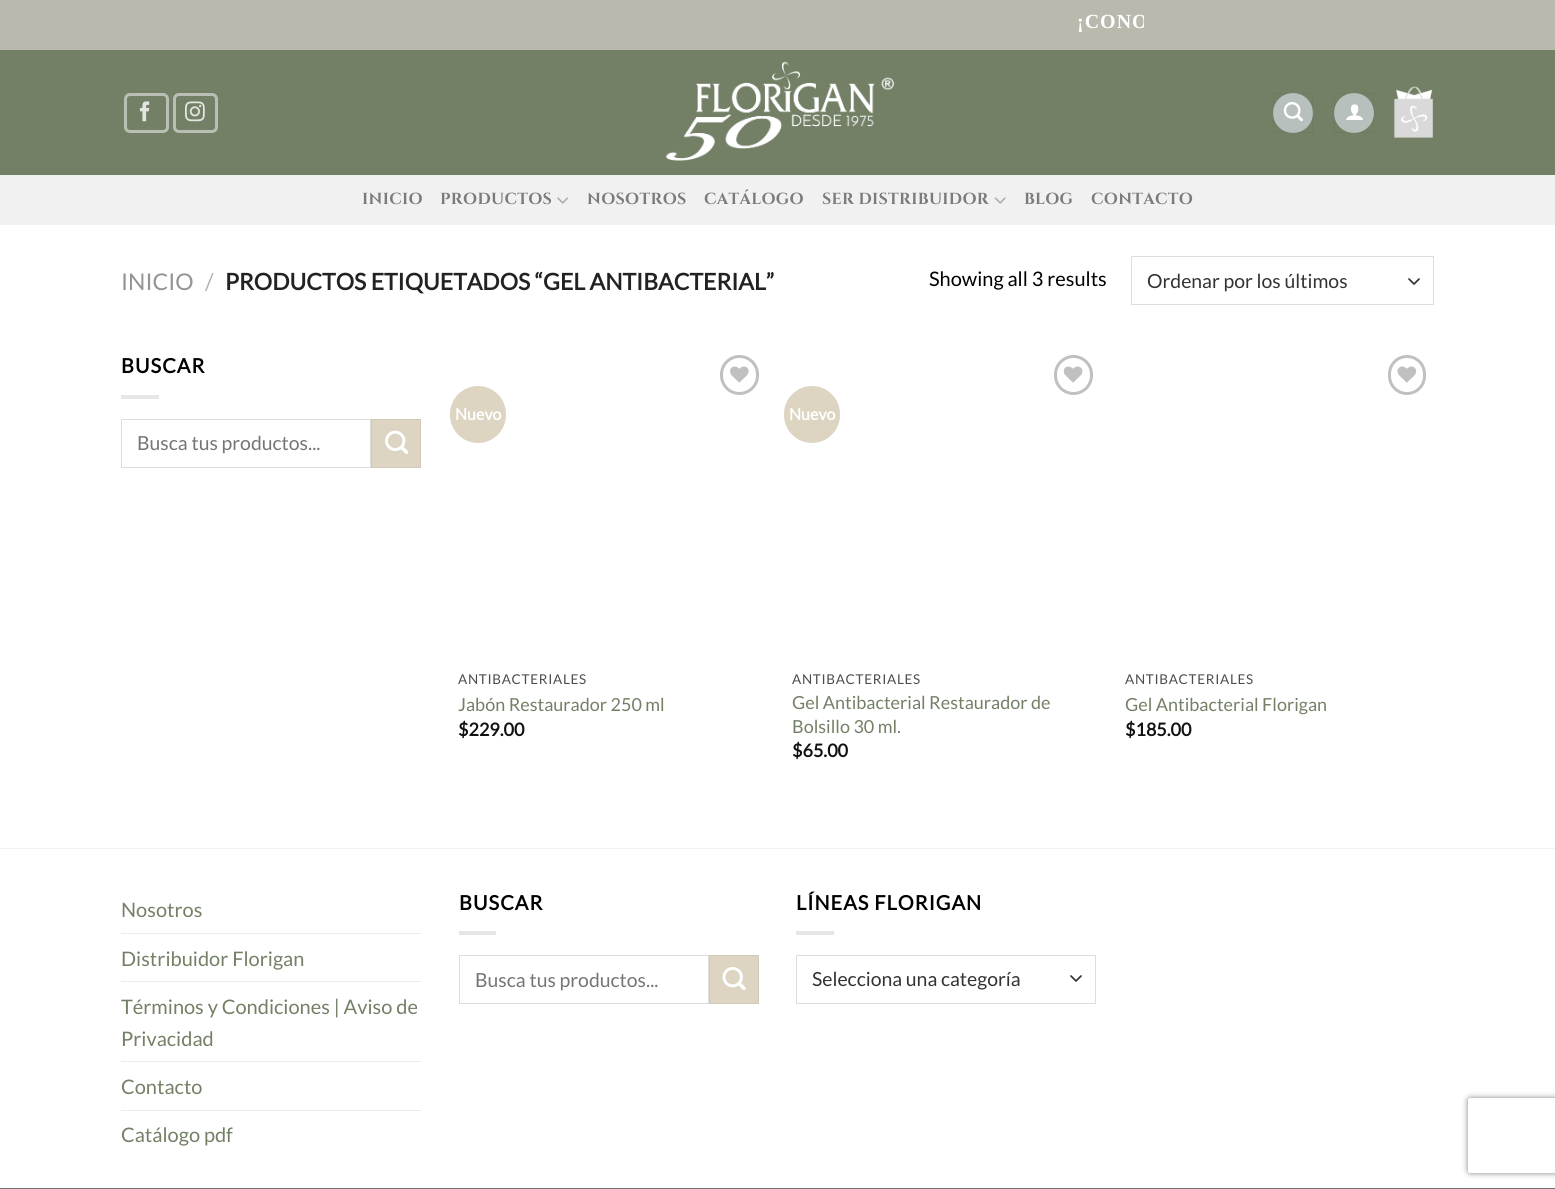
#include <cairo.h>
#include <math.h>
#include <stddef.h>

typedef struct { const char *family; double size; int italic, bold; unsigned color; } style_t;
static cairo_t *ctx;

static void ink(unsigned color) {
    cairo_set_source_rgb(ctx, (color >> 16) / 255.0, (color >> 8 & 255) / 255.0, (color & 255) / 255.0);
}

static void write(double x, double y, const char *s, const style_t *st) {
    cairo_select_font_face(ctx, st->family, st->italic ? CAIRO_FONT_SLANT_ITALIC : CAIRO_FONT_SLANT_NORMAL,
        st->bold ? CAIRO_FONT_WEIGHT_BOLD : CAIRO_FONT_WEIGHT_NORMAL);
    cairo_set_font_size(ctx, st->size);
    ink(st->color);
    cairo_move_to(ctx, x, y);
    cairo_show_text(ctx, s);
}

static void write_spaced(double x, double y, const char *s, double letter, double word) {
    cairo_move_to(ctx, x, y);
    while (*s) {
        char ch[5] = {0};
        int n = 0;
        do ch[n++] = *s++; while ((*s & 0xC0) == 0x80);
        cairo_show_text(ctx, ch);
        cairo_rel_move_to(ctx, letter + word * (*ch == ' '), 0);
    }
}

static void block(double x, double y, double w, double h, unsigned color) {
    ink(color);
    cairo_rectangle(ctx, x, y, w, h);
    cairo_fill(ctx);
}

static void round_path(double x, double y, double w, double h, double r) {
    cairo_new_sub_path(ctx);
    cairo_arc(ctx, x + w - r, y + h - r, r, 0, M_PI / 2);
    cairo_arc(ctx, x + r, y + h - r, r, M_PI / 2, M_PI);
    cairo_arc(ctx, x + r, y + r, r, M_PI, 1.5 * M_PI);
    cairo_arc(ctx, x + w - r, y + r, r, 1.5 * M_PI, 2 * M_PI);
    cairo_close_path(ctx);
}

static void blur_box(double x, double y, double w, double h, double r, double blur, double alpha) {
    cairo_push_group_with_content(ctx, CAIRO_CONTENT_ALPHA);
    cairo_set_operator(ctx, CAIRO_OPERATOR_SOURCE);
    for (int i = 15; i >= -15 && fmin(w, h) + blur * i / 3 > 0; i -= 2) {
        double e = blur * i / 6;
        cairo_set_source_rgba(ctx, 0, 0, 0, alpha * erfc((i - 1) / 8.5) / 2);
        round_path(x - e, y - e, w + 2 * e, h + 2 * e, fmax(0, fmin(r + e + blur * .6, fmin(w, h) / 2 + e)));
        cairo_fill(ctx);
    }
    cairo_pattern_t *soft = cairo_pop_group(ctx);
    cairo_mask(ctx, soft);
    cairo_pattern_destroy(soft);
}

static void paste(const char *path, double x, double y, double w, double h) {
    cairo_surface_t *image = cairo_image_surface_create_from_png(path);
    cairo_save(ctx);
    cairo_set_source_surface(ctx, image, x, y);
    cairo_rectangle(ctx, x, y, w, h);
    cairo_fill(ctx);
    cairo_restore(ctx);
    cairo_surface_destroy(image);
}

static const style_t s1 = {"Lato", 23, 0, 0, 0x949494};
static const style_t s2 = {"Lato", 23, 0, 0, 0xb2b2b2};
static const style_t s3 = {"Lato", 23, 0, 1, 0x222222};
static const style_t s4 = {"Lato", 20, 0, 0, 0x000000};
static const style_t s5 = {"Lato", 19.4, 0, 0, 0x333333};
static const style_t s6 = {"Lato", 19.4, 0, 0, 0x757575};
static const style_t s7 = {"Lato", 16, 0, 1, 0xffffff};
static const style_t s8 = {"Lato", 18, 0, 0, 0x738066};
static const style_t s9 = {"Lato", 18, 0, 1, 0x111111};
static const style_t s10 = {"Lato", 20, 0, 0, 0x738066};

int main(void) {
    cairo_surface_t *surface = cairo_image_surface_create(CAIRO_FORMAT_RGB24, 1555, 1189);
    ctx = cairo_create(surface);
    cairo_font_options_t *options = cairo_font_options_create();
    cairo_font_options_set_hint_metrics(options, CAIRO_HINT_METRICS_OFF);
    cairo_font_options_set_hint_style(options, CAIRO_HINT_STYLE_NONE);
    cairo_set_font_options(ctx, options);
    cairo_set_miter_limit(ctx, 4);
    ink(0xffffff);
    cairo_paint(ctx);
    block(0, 50, 1555, 125, 0x738066);
    block(0, 0, 1555, 50, 0xbab9ae);
    cairo_save(ctx);
    cairo_rectangle(ctx, 121, 6, 1023, 32);
    cairo_clip(ctx);
    cairo_select_font_face(ctx, "Liberation Serif", CAIRO_FONT_SLANT_NORMAL, CAIRO_FONT_WEIGHT_BOLD);
    cairo_set_font_size(ctx, 20);
    ink(0xffffff);
    write_spaced(1077, 28, "¡CONO", 1, 0);
    cairo_restore(ctx);
    round_path(125.5, 94.5, 42, 37, 4.5);
    ink(0xb9c0b3);
    cairo_set_line_width(ctx, 3);
    cairo_stroke(ctx);
    paste("pic1.png", 139, 101, 11, 21);
    round_path(174.5, 94.5, 42, 37, 4.5);
    cairo_stroke(ctx);
    paste("pic2.png", 185, 101, 20, 21);
    paste("pic3.png", 665, 61, 229, 100);
    ink(0xb8c0bd);
    cairo_arc(ctx, 1293, 113, 20, 0, 2 * M_PI);
    cairo_fill(ctx);
    cairo_rectangle(ctx, 1273.5, 93.5, 39, 39);
    cairo_set_source_rgba(ctx, 0, 0, 0, 0.05);
    cairo_set_line_width(ctx, 1);
    cairo_stroke(ctx);
    paste("pic4.png", 1283, 102, 20, 20);
    ink(0xb8c0bd);
    cairo_arc(ctx, 1354, 113, 20, 0, 2 * M_PI);
    cairo_fill(ctx);
    cairo_rectangle(ctx, 1334.5, 93.5, 39, 39);
    cairo_set_source_rgba(ctx, 0, 0, 0, 0.05);
    cairo_stroke(ctx);
    paste("pic5.png", 1346, 104, 17, 16);
    paste("pic6.png", 1393, 86, 40, 52);
    block(0, 175, 1555, 50, 0xf1f1f1);
    cairo_select_font_face(ctx, "Cinzel", CAIRO_FONT_SLANT_NORMAL, CAIRO_FONT_WEIGHT_BOLD);
    cairo_set_font_size(ctx, 16);
    ink(0x7b7b7b);
    write_spaced(362, 204, "INICIO", 0.3, 0);
    write_spaced(440, 204, "PRODUCTOS", 0.3, 0);
    paste("pic7.png", 557, 197, 12, 7);
    write_spaced(587, 204, "NOSOTROS", 0.3, 0);
    write_spaced(704, 204, "CATÁLOGO", 0.3, 0);
    write_spaced(822, 204, "SER DISTRIBUIDOR", 0.3, 0);
    paste("pic8.png", 994, 197, 12, 7);
    write_spaced(1024, 204, "BLOG", 0.3, 0);
    write_spaced(1091, 204, "CONTACTO", 0.3, 0);
    write(121, 290, "INICIO", &s1);
    write(205, 290, "/", &s2);
    write(225, 290, "PRODUCTOS ETIQUETADOS “GEL ANTIBACTERIAL”", &s3);
    write(929, 286, "Showing all 3 results", &s4);
    cairo_new_path(ctx);
    cairo_move_to(ctx, 1409, 279);
    cairo_line_to(ctx, 1414, 284);
    cairo_line_to(ctx, 1419, 279);
    ink(0x333333);
    cairo_set_line_width(ctx, 1.7);
    cairo_set_line_cap(ctx, CAIRO_LINE_CAP_ROUND);
    cairo_set_line_join(ctx, CAIRO_LINE_JOIN_ROUND);
    cairo_stroke(ctx);
    cairo_rectangle(ctx, 1131.5, 256.5, 302, 48);
    ink(0xdddddd);
    cairo_set_line_width(ctx, 1);
    cairo_set_line_cap(ctx, CAIRO_LINE_CAP_BUTT);
    cairo_set_line_join(ctx, CAIRO_LINE_JOIN_MITER);
    cairo_stroke(ctx);
    write(1147, 288, "Ordenar por los últimos", &s5);
    cairo_select_font_face(ctx, "Lato", CAIRO_FONT_SLANT_NORMAL, CAIRO_FONT_WEIGHT_BOLD);
    cairo_set_font_size(ctx, 20);
    ink(0x000000);
    write_spaced(121, 373, "BUSCAR", 1, 0);
    block(121, 395, 38, 4, 0xe6e6e6);
    cairo_rectangle(ctx, 121.5, 419.5, 249, 48);
    ink(0xdddddd);
    cairo_stroke(ctx);
    write(137, 450, "Busca tus productos...", &s6);
    ink(0xddd5c2);
    cairo_rectangle(ctx, 371.5, 419.5, 49, 48);
    cairo_fill_preserve(ctx);
    ink(0xd2cab8);
    cairo_stroke(ctx);
    paste("pic9.png", 385, 430, 24, 24);
    ink(0xddd5c2);
    round_path(450, 386, 56, 57, 28);
    cairo_fill(ctx);
    write(455, 420, "Nuevo", &s7);
    round_path(721.5, 356.5, 36, 37, 18);
    ink(0xc0c0c0);
    cairo_set_line_width(ctx, 3);
    cairo_stroke(ctx);
    paste("pic10.png", 730, 366, 19, 17);
    cairo_select_font_face(ctx, "Lato", CAIRO_FONT_SLANT_NORMAL, CAIRO_FONT_WEIGHT_NORMAL);
    cairo_set_font_size(ctx, 13.5);
    ink(0x4d4d4d);
    write_spaced(458, 684, "ANTIBACTERIALES", 0.7, 0);
    write(458, 711, "Jabón Restaurador 250 ml", &s8);
    write(458, 736, "$229.00", &s9);
    ink(0xddd5c2);
    round_path(784, 386, 56, 57, 28);
    cairo_fill(ctx);
    write(789, 420, "Nuevo", &s7);
    round_path(1055.5, 356.5, 36, 37, 18);
    ink(0xc0c0c0);
    cairo_stroke(ctx);
    paste("pic11.png", 1063, 366, 20, 17);
    cairo_select_font_face(ctx, "Lato", CAIRO_FONT_SLANT_NORMAL, CAIRO_FONT_WEIGHT_NORMAL);
    cairo_set_font_size(ctx, 13.5);
    ink(0x4d4d4d);
    write_spaced(792, 684, "ANTIBACTERIALES", 0.7, 0);
    write(792, 709, "Gel Antibacterial Restaurador de", &s8);
    write(792, 733, "Bolsillo 30 ml.", &s8);
    write(792, 757, "$65.00", &s9);
    round_path(1389.5, 356.5, 35, 37, 17.5);
    ink(0xc0c0c0);
    cairo_stroke(ctx);
    paste("pic12.png", 1397, 366, 20, 17);
    cairo_select_font_face(ctx, "Lato", CAIRO_FONT_SLANT_NORMAL, CAIRO_FONT_WEIGHT_NORMAL);
    cairo_set_font_size(ctx, 13.5);
    ink(0x4d4d4d);
    write_spaced(1125, 684, "ANTIBACTERIALES", 0.7, 0);
    write(1125, 711, "Gel Antibacterial Florigan", &s8);
    write(1125, 736, "$185.00", &s9);
    block(0, 848, 1555, 1, 0xf2f2f2);
    write(121, 917, "Nosotros", &s10);
    block(121, 933, 300, 1, 0xececec);
    write(121, 966, "Distribuidor Florigan", &s10);
    block(121, 981, 300, 1, 0xececec);
    write(121, 1014, "Términos y Condiciones | Aviso de", &s10);
    write(121, 1046, "Privacidad", &s10);
    block(121, 1061, 300, 1, 0xececec);
    write(121, 1094, "Contacto", &s10);
    block(121, 1110, 300, 1, 0xececec);
    write(121, 1142, "Catálogo pdf", &s10);
    cairo_select_font_face(ctx, "Lato", CAIRO_FONT_SLANT_NORMAL, CAIRO_FONT_WEIGHT_BOLD);
    ink(0x000000);
    write_spaced(459, 910, "BUSCAR", 1, 0);
    block(459, 931, 37, 4, 0xe6e6e6);
    cairo_rectangle(ctx, 459.5, 955.5, 249, 48);
    ink(0xdddddd);
    cairo_set_line_width(ctx, 1);
    cairo_stroke(ctx);
    write(475, 987, "Busca tus productos...", &s6);
    ink(0xddd5c2);
    cairo_rectangle(ctx, 709.5, 955.5, 49, 48);
    cairo_fill_preserve(ctx);
    ink(0xd2cab8);
    cairo_stroke(ctx);
    paste("pic13.png", 722, 967, 24, 24);
    cairo_select_font_face(ctx, "Lato", CAIRO_FONT_SLANT_NORMAL, CAIRO_FONT_WEIGHT_BOLD);
    cairo_set_font_size(ctx, 20);
    ink(0x000000);
    write_spaced(796, 910, "LÍNEAS FLORIGAN", 1, 0);
    block(796, 931, 38, 4, 0xe6e6e6);
    cairo_new_path(ctx);
    cairo_move_to(ctx, 1071, 976);
    cairo_line_to(ctx, 1076, 981);
    cairo_line_to(ctx, 1081, 976);
    ink(0x333333);
    cairo_set_line_width(ctx, 1.7);
    cairo_set_line_cap(ctx, CAIRO_LINE_CAP_ROUND);
    cairo_set_line_join(ctx, CAIRO_LINE_JOIN_ROUND);
    cairo_stroke(ctx);
    cairo_rectangle(ctx, 796.5, 955.5, 299, 48);
    ink(0xdddddd);
    cairo_set_line_width(ctx, 1);
    cairo_set_line_cap(ctx, CAIRO_LINE_CAP_BUTT);
    cairo_set_line_join(ctx, CAIRO_LINE_JOIN_MITER);
    cairo_stroke(ctx);
    write(812, 986, "Selecciona una categoría", &s5);
    block(0, 1188, 1555, 1, 0x717171);
    cairo_save(ctx);
    cairo_set_fill_rule(ctx, CAIRO_FILL_RULE_EVEN_ODD);
    cairo_new_path(ctx);
    cairo_move_to(ctx, 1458, 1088);
    cairo_line_to(ctx, 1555, 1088);
    cairo_line_to(ctx, 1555, 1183);
    cairo_line_to(ctx, 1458, 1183);
    cairo_close_path(ctx);
    cairo_move_to(ctx, 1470.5, 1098);
    cairo_line_to(ctx, 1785.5, 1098);
    cairo_curve_to(ctx, 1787, 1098, 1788, 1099, 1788, 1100.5);
    cairo_line_to(ctx, 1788, 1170.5);
    cairo_curve_to(ctx, 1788, 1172, 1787, 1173, 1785.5, 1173);
    cairo_line_to(ctx, 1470.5, 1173);
    cairo_curve_to(ctx, 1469, 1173, 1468, 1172, 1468, 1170.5);
    cairo_line_to(ctx, 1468, 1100.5);
    cairo_curve_to(ctx, 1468, 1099, 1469, 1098, 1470.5, 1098);
    cairo_close_path(ctx);
    cairo_clip(ctx);
    ink(0x808080);
    blur_box(1468, 1098, 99, 75, 2.5, 3, 1);
    cairo_restore(ctx);
    cairo_surface_write_to_png(surface, "screenshot.png");
    cairo_font_options_destroy(options);
    cairo_destroy(ctx);
    cairo_surface_destroy(surface);
    return 0;
}
